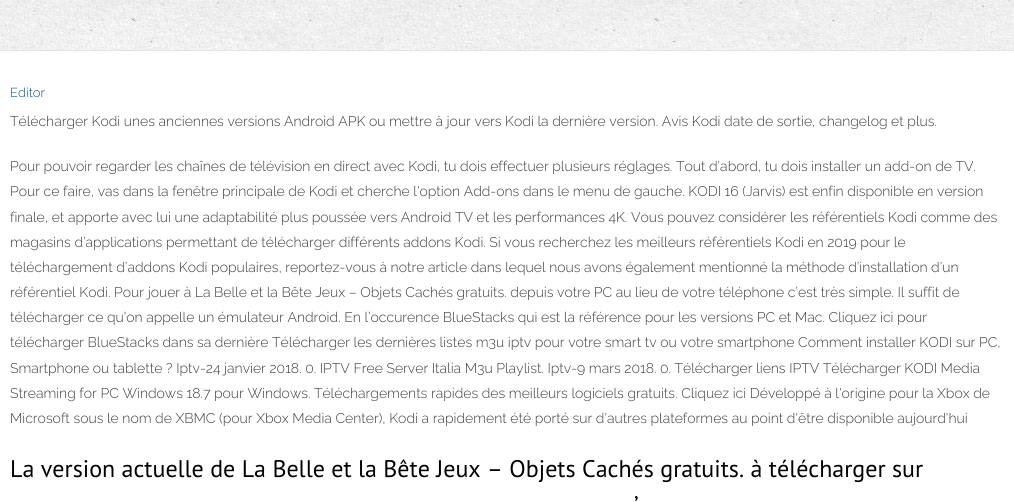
#include <cairo.h>
#include <math.h>
#include <stddef.h>

typedef struct { const char *family; double size; int italic, bold; unsigned color; } style_t;
static cairo_t *ctx;

static void ink(unsigned color) {
    cairo_set_source_rgb(ctx, (color >> 16) / 255.0, (color >> 8 & 255) / 255.0, (color & 255) / 255.0);
}

static void write(double x, double y, const char *s, const style_t *st) {
    cairo_select_font_face(ctx, st->family, st->italic ? CAIRO_FONT_SLANT_ITALIC : CAIRO_FONT_SLANT_NORMAL,
        st->bold ? CAIRO_FONT_WEIGHT_BOLD : CAIRO_FONT_WEIGHT_NORMAL);
    cairo_set_font_size(ctx, st->size);
    ink(st->color);
    cairo_move_to(ctx, x, y);
    cairo_show_text(ctx, s);
}

static void block(double x, double y, double w, double h, unsigned color) {
    ink(color);
    cairo_rectangle(ctx, x, y, w, h);
    cairo_fill(ctx);
}

static void paste(const char *path, double x, double y, double w, double h) {
    cairo_surface_t *image = cairo_image_surface_create_from_png(path);
    cairo_save(ctx);
    cairo_set_source_surface(ctx, image, x, y);
    cairo_rectangle(ctx, x, y, w, h);
    cairo_fill(ctx);
    cairo_restore(ctx);
    cairo_surface_destroy(image);
}

static const style_t s1 = {"Raleway Light", 13, 0, 0, 0x115172};
static const style_t s2 = {"Raleway Light", 14, 0, 0, 0x3d3d3d};
static const style_t s3 = {"PT Sans", 24, 0, 0, 0x000000};

int main(void) {
    cairo_surface_t *surface = cairo_image_surface_create(CAIRO_FORMAT_RGB24, 1014, 502);
    ctx = cairo_create(surface);
    cairo_font_options_t *options = cairo_font_options_create();
    cairo_font_options_set_hint_metrics(options, CAIRO_HINT_METRICS_OFF);
    cairo_font_options_set_hint_style(options, CAIRO_HINT_STYLE_NONE);
    cairo_set_font_options(ctx, options);
    cairo_set_miter_limit(ctx, 4);
    ink(0xffffff);
    cairo_paint(ctx);
    paste("pic1.png", 0, 0, 1014, 50);
    block(0, 50, 1014, 1, 0xe5e5e5);
    write(10, 97, "Editor", &s1);
    write(10, 126, "Télécharger Kodi unes anciennes versions Android APK ou mettre à jour vers Kodi la dernière version. Avis Kodi date de sortie, changelog et plus.", &s2);
    write(10, 171, "Pour pouvoir regarder les chaînes de télévision en direct avec Kodi, tu dois effectuer plusieurs réglages. Tout d’abord, tu dois installer un add-on de TV.", &s2);
    write(10, 196, "Pour ce faire, vas dans la fenêtre principale de Kodi et cherche l'option Add-ons dans le menu de gauche. KODI 16 (Jarvis) est enfin disponible en version", &s2);
    write(10, 222, "finale, et apporte avec lui une adaptabilité plus poussée vers Android TV et les performances 4K. Vous pouvez considérer les référentiels Kodi comme des", &s2);
    write(10, 247, "magasins d’applications permettant de télécharger différents addons Kodi. Si vous recherchez les meilleurs référentiels Kodi en 2019 pour le", &s2);
    write(10, 272, "téléchargement d’addons Kodi populaires, reportez-vous à notre article dans lequel nous avons également mentionné la méthode d’installation d’un", &s2);
    write(10, 297, "référentiel Kodi. Pour jouer à La Belle et la Bête Jeux – Objets Cachés gratuits. depuis votre PC au lieu de votre téléphone c’est très simple. Il suffit de", &s2);
    write(10, 322, "télécharger ce qu’on appelle un émulateur Android. En l’occurence BlueStacks qui est la référence pour les versions PC et Mac. Cliquez ici pour", &s2);
    write(10, 347, "télécharger BlueStacks dans sa dernière Télécharger les dernières listes m3u iptv pour votre smart tv ou votre smartphone Comment installer KODI sur PC,", &s2);
    write(10, 373, "Smartphone ou tablette ? Iptv-24 janvier 2018. 0. IPTV Free Server Italia M3u Playlist. Iptv-9 mars 2018. 0. Télécharger liens IPTV Télécharger KODI Media", &s2);
    write(10, 398, "Streaming for PC Windows 18.7 pour Windows. Téléchargements rapides des meilleurs logiciels gratuits. Cliquez ici Développé à l'origine pour la Xbox de", &s2);
    write(10, 423, "Microsoft sous le nom de XBMC (pour Xbox Media Center), Kodi a rapidement été porté sur d'autres plateformes au point d'être disponible aujourd'hui", &s2);
    write(10, 477, "La version actuelle de La Belle et la Bête Jeux – Objets Cachés gratuits. à télécharger sur", &s3);
    write(634, 513, "’", &s3);
    cairo_surface_write_to_png(surface, "screenshot.png");
    cairo_font_options_destroy(options);
    cairo_destroy(ctx);
    cairo_surface_destroy(surface);
    return 0;
}
